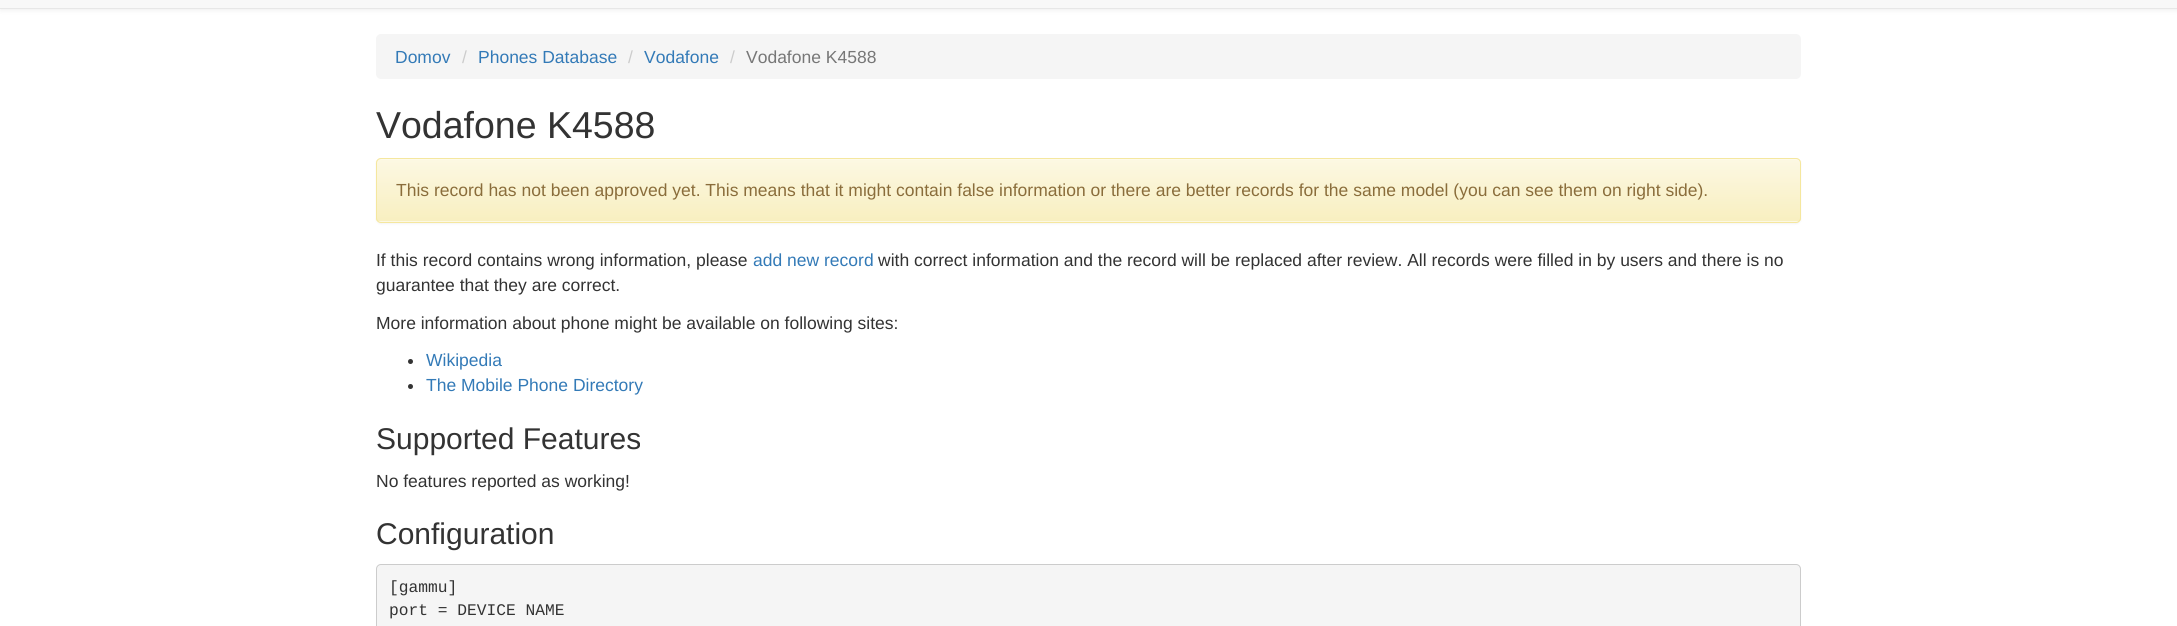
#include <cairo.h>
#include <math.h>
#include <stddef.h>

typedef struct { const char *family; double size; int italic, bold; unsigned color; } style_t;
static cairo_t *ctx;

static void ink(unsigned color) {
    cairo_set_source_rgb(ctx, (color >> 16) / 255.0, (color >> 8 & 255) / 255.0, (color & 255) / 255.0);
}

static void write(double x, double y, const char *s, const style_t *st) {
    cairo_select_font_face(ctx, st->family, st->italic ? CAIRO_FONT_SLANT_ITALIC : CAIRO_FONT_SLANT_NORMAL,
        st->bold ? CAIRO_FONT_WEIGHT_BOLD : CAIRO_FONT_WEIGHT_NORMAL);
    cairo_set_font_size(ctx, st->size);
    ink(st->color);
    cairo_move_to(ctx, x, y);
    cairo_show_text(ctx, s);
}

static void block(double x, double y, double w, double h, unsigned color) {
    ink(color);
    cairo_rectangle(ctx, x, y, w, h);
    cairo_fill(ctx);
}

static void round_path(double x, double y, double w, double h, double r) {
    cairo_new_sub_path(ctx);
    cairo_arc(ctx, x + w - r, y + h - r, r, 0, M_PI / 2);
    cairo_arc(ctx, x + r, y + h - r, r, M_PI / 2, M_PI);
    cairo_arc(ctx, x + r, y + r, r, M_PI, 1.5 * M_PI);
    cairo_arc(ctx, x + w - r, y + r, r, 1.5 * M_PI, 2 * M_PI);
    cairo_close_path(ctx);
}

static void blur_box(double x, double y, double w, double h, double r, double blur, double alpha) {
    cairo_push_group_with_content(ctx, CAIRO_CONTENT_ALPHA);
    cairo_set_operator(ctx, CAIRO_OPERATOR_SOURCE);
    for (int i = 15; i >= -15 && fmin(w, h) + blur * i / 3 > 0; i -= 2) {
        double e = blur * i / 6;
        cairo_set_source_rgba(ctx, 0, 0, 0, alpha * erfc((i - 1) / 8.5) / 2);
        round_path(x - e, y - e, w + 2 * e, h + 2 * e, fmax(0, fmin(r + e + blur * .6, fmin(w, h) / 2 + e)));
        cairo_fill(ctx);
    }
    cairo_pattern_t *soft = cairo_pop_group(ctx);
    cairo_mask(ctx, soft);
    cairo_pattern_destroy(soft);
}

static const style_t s1 = {"Liberation Sans", 17.5, 0, 0, 0x337ab7};
static const style_t s2 = {"Liberation Sans", 17.5, 0, 0, 0xcccccc};
static const style_t s3 = {"Liberation Sans", 17.5, 0, 0, 0x777777};
static const style_t s4 = {"Liberation Sans", 37.5, 0, 0, 0x333333};
static const style_t s5 = {"Liberation Sans", 17.5, 0, 0, 0x8a6d3b};
static const style_t s6 = {"Liberation Sans", 17.5, 0, 0, 0x333333};
static const style_t s7 = {"Liberation Sans", 30, 0, 0, 0x333333};
static const style_t s8 = {"Liberation Mono", 16.25, 0, 0, 0x333333};

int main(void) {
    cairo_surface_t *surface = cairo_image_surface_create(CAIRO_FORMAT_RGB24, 2177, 626);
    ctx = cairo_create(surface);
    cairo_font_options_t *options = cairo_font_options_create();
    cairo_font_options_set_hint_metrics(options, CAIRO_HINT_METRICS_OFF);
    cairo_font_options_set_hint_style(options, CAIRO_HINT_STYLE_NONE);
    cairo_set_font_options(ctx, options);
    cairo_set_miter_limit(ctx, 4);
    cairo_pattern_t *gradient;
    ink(0xffffff);
    cairo_paint(ctx);
    ink(0x000000);
    blur_box(0, -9, 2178, 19, 0, 3, 0.07);
    block(0, 0, 2177, 8, 0xf8f8f8);
    block(0, 8, 2177, 1, 0xe7e7e7);
    ink(0xf5f5f5);
    round_path(376, 34, 1425, 45, 5);
    cairo_fill(ctx);
    write(395, 63, "Domov", &s1);
    write(462, 63, "/", &s2);
    write(478, 63, "Phones Database", &s1);
    write(628, 63, "/", &s2);
    write(644, 63, "Vodafone", &s1);
    write(730, 63, "/", &s2);
    write(746, 63, "Vodafone K4588", &s3);
    write(376, 138, "Vodafone K4588", &s4);
    ink(0x000000);
    blur_box(376, 159, 1425, 65, 5, 1, 0.05);
    ink(0xfcf8e3);
    round_path(376, 158, 1425, 65, 5);
    cairo_fill(ctx);
    cairo_save(ctx);
    round_path(376, 158, 1425, 65, 5);
    cairo_clip(ctx);
    gradient = cairo_pattern_create_linear(1089, 159, 1089, 221);
    cairo_pattern_add_color_stop_rgba(gradient, 0, 0.988, 0.973, 0.89, 1);
    cairo_pattern_add_color_stop_rgba(gradient, 1, 0.973, 0.937, 0.753, 1);
    cairo_set_source(ctx, gradient);
    cairo_pattern_destroy(gradient);
    cairo_rectangle(ctx, 376, 159, 1425, 62);
    cairo_fill(ctx);
    cairo_restore(ctx);
    ink(0xfdfaea);
    cairo_new_path(ctx);
    cairo_move_to(ctx, 381, 160);
    cairo_line_to(ctx, 1796, 160);
    cairo_curve_to(ctx, 1798, 160, 1800, 162, 1800, 164);
    cairo_line_to(ctx, 1800, 163);
    cairo_curve_to(ctx, 1800, 161, 1798, 159, 1796, 159);
    cairo_line_to(ctx, 382, 159);
    cairo_curve_to(ctx, 380, 159, 378, 161, 378, 163);
    cairo_line_to(ctx, 378, 164);
    cairo_curve_to(ctx, 378, 162, 379, 160, 381, 160);
    cairo_close_path(ctx);
    cairo_fill(ctx);
    round_path(376.5, 158.5, 1424, 64, 4.5);
    ink(0xf5e79e);
    cairo_set_line_width(ctx, 1);
    cairo_stroke(ctx);
    write(396, 196, "This record has not been approved yet. This means that it might contain false information or there are better records for the same model (you can see them on right side).", &s5);
    write(376, 266, "If this record contains wrong information, please", &s6);
    write(753, 266, "add new record", &s1);
    write(878, 266, "with correct information and the record will be replaced after review. All records were filled in by users and there is no", &s6);
    write(376, 291, "guarantee that they are correct.", &s6);
    write(376, 329, "More information about phone might be available on following sites:", &s6);
    cairo_new_path(ctx);
    cairo_arc(ctx, 410.5, 361.5, 2.5, 0, 2 * M_PI);
    cairo_fill(ctx);
    write(426, 366, "Wikipedia", &s1);
    ink(0x333333);
    cairo_new_path(ctx);
    cairo_arc(ctx, 410.5, 386.5, 2.5, 0, 2 * M_PI);
    cairo_fill(ctx);
    write(426, 391, "The Mobile Phone Directory", &s1);
    write(376, 449, "Supported Features", &s7);
    write(376, 487, "No features reported as working!", &s6);
    write(376, 544, "Configuration", &s7);
    ink(0xf5f5f5);
    round_path(376.5, 564.5, 1424, 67, 4.5);
    cairo_fill_preserve(ctx);
    ink(0xcccccc);
    cairo_stroke(ctx);
    write(389, 592, "[gammu]", &s8);
    write(389, 615, "port = DEVICE NAME", &s8);
    cairo_surface_write_to_png(surface, "screenshot.png");
    cairo_font_options_destroy(options);
    cairo_destroy(ctx);
    cairo_surface_destroy(surface);
    return 0;
}
